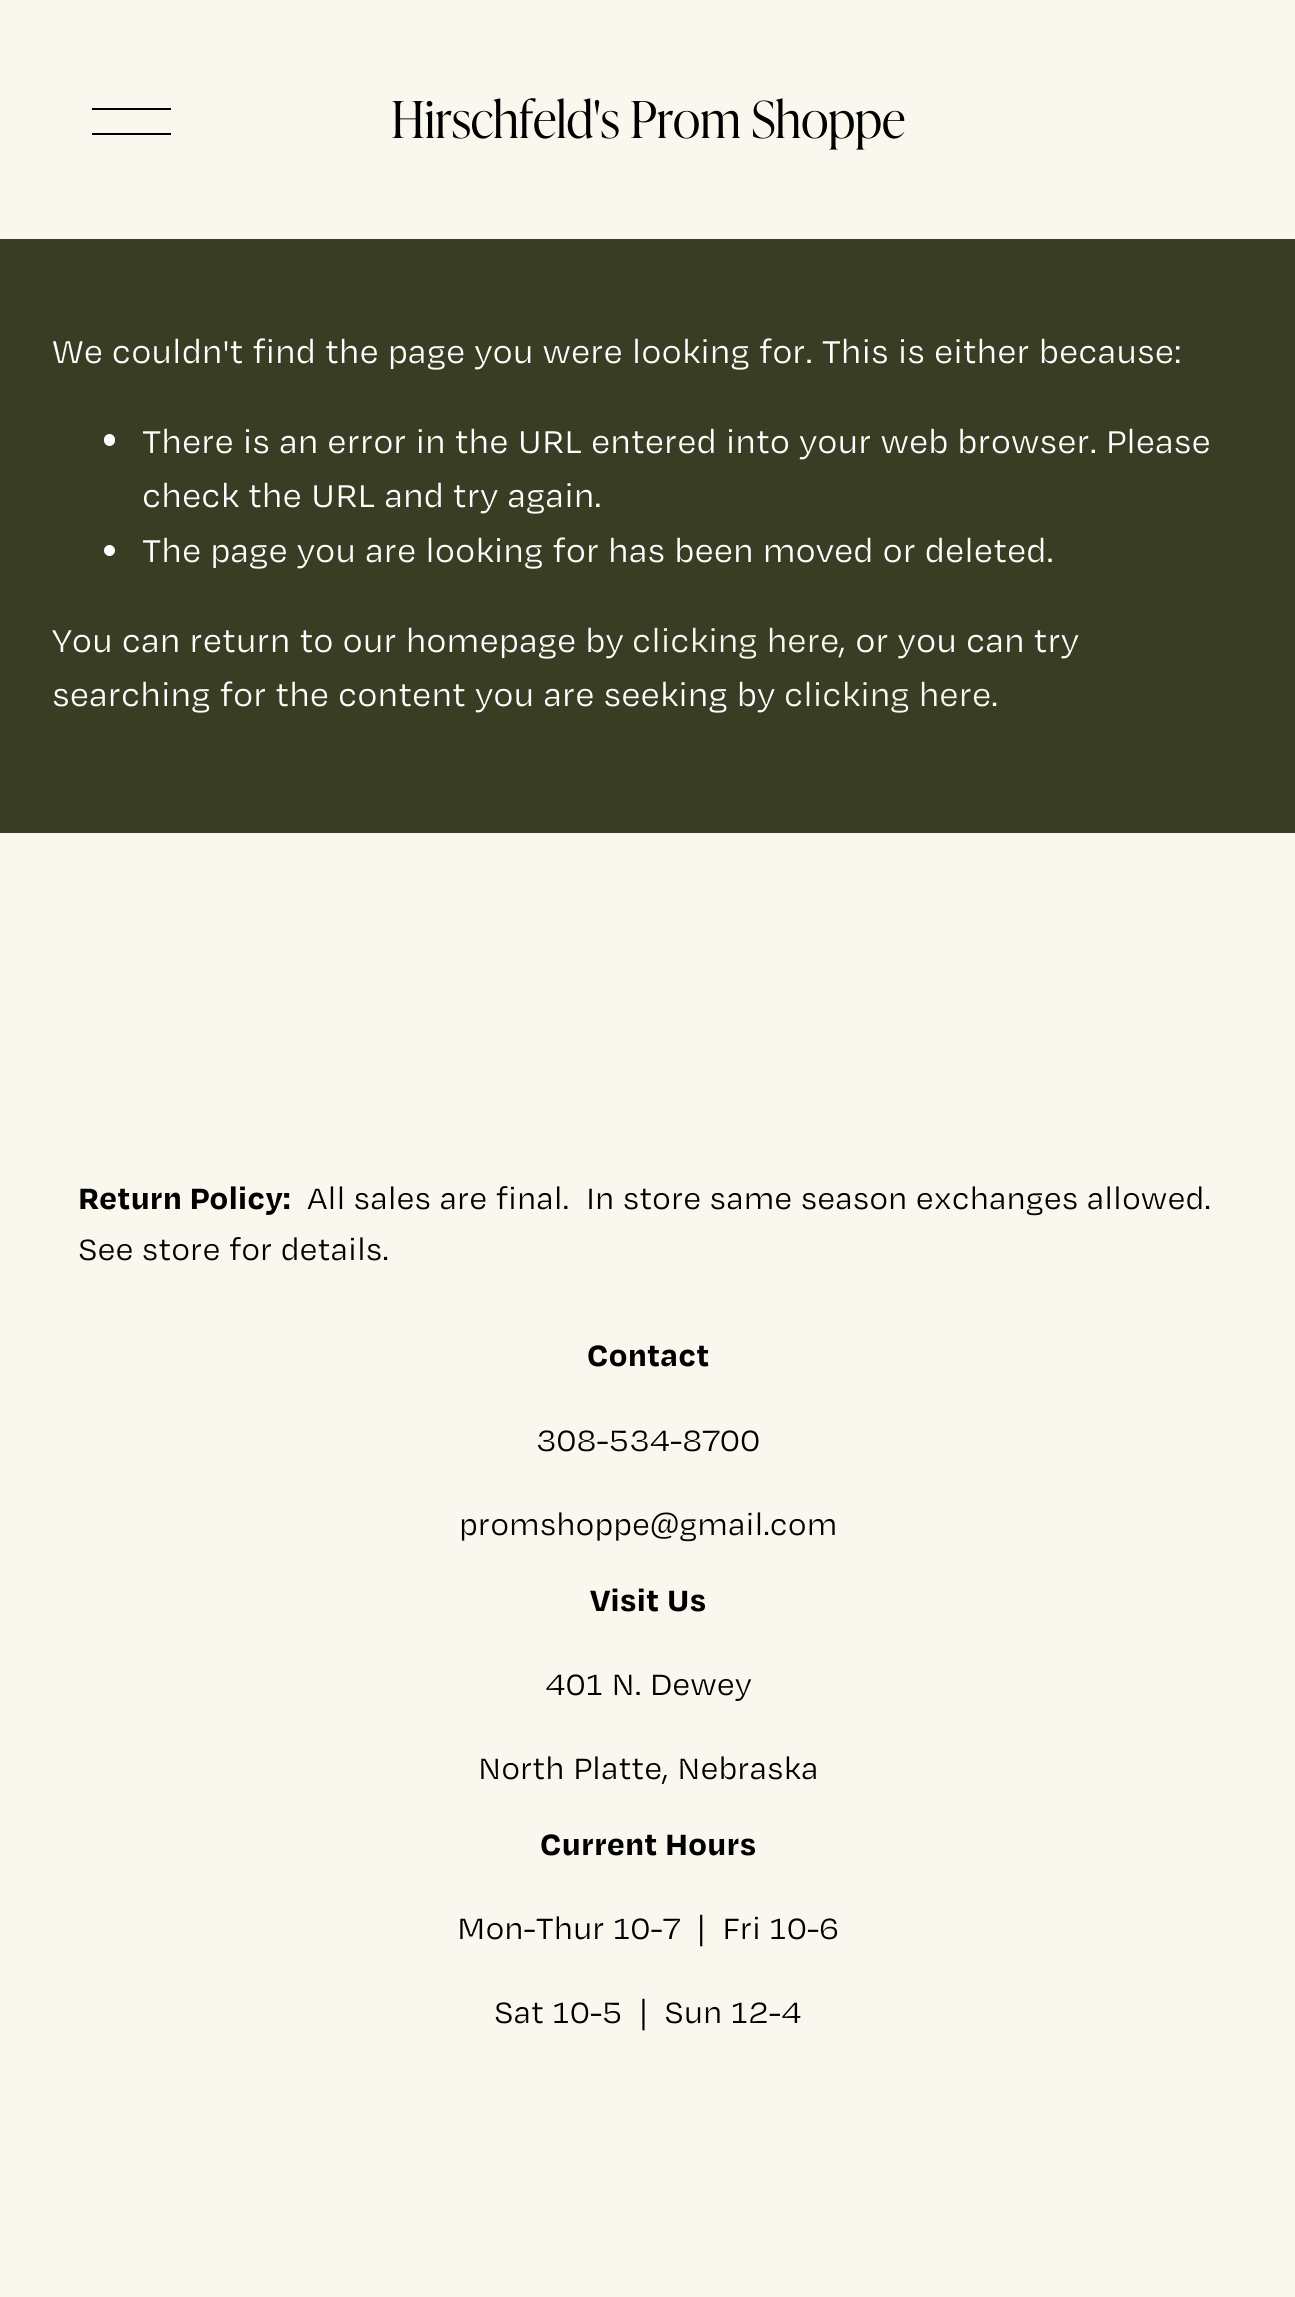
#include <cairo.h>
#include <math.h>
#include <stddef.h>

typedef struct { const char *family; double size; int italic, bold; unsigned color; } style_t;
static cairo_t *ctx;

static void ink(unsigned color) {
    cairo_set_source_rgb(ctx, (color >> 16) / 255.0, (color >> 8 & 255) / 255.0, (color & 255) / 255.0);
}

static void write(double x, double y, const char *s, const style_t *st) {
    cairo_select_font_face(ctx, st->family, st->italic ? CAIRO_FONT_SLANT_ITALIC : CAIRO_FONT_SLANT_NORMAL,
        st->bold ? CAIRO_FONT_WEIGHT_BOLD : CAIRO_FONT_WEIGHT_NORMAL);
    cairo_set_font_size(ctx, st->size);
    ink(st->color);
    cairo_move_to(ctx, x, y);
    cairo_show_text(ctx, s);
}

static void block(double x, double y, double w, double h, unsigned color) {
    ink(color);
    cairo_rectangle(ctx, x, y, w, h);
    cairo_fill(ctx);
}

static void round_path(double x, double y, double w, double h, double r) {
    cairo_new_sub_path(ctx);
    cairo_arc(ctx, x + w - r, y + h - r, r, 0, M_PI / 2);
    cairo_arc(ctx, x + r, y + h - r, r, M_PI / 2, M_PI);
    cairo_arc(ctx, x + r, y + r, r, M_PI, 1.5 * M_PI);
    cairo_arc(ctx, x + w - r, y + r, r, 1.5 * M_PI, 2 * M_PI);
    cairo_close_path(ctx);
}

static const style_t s1 = {"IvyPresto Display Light", 50.75, 0, 0, 0x000000};
static const style_t s2 = {"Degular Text", 36.2, 0, 0, 0xffffff};
static const style_t s3 = {"Degular Text", 36.2, 0, 0, 0xfaf7ef};
static const style_t s4 = {"Degular Text", 33.75, 0, 1, 0x000000};
static const style_t s5 = {"Degular Text", 33.75, 0, 0, 0x000000};

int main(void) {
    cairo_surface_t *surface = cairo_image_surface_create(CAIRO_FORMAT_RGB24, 1295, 2297);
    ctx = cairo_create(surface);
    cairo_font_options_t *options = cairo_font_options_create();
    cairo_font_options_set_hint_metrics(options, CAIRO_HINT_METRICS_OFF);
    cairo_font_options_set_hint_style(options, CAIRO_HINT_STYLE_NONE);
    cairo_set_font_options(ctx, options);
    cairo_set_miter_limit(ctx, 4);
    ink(0x393d24);
    cairo_paint(ctx);
    block(0, 0, 1295, 239, 0xfaf7ef);
    block(92, 108, 79, 2, 0x000000);
    block(92, 133, 79, 2, 0x000000);
    write(391, 138, "Hirschfeld's Prom Shoppe", &s1);
    write(52, 363, "We couldn't find the page you were looking for. This is either because:", &s2);
    round_path(104, 434, 11, 12, 5.5);
    cairo_fill(ctx);
    write(142, 453, "There is an error in the URL entered into your web browser. Please", &s2);
    write(142, 507, "check the URL and try again.", &s2);
    cairo_new_path(ctx);
    cairo_arc(ctx, 109.5, 550.5, 5.5, 0, 2 * M_PI);
    cairo_fill(ctx);
    write(142, 562, "The page you are looking for has been moved or deleted.", &s2);
    write(52, 652, "You can return to our homepage by", &s2);
    write(632, 652, "clicking here", &s3);
    write(839, 652, ", or you can try", &s2);
    write(52, 706, "searching for the content you are seeking by", &s2);
    write(784, 706, "clicking here", &s3);
    write(991, 706, ".", &s2);
    block(0, 833, 1295, 1464, 0xfaf7ef);
    write(78, 1209, "Return Policy:", &s4);
    write(307, 1209, "All sales are final.  In store same season exchanges allowed.", &s5);
    write(78, 1260, "See store for details.", &s5);
    write(587, 1366, "Contact", &s4);
    write(536, 1451, "308-534-8700", &s5);
    write(459, 1535, "promshoppe@gmail.com", &s5);
    write(590, 1611, "Visit Us", &s4);
    write(545, 1695, "401 N. Dewey", &s5);
    write(478, 1779, "North Platte, Nebraska", &s5);
    write(540, 1855, "Current Hours", &s4);
    write(457, 1939, "Mon-Thur 10-7  |  Fri 10-6", &s5);
    write(494, 2023, "Sat 10-5  |  Sun 12-4", &s5);
    cairo_surface_write_to_png(surface, "screenshot.png");
    cairo_font_options_destroy(options);
    cairo_destroy(ctx);
    cairo_surface_destroy(surface);
    return 0;
}
